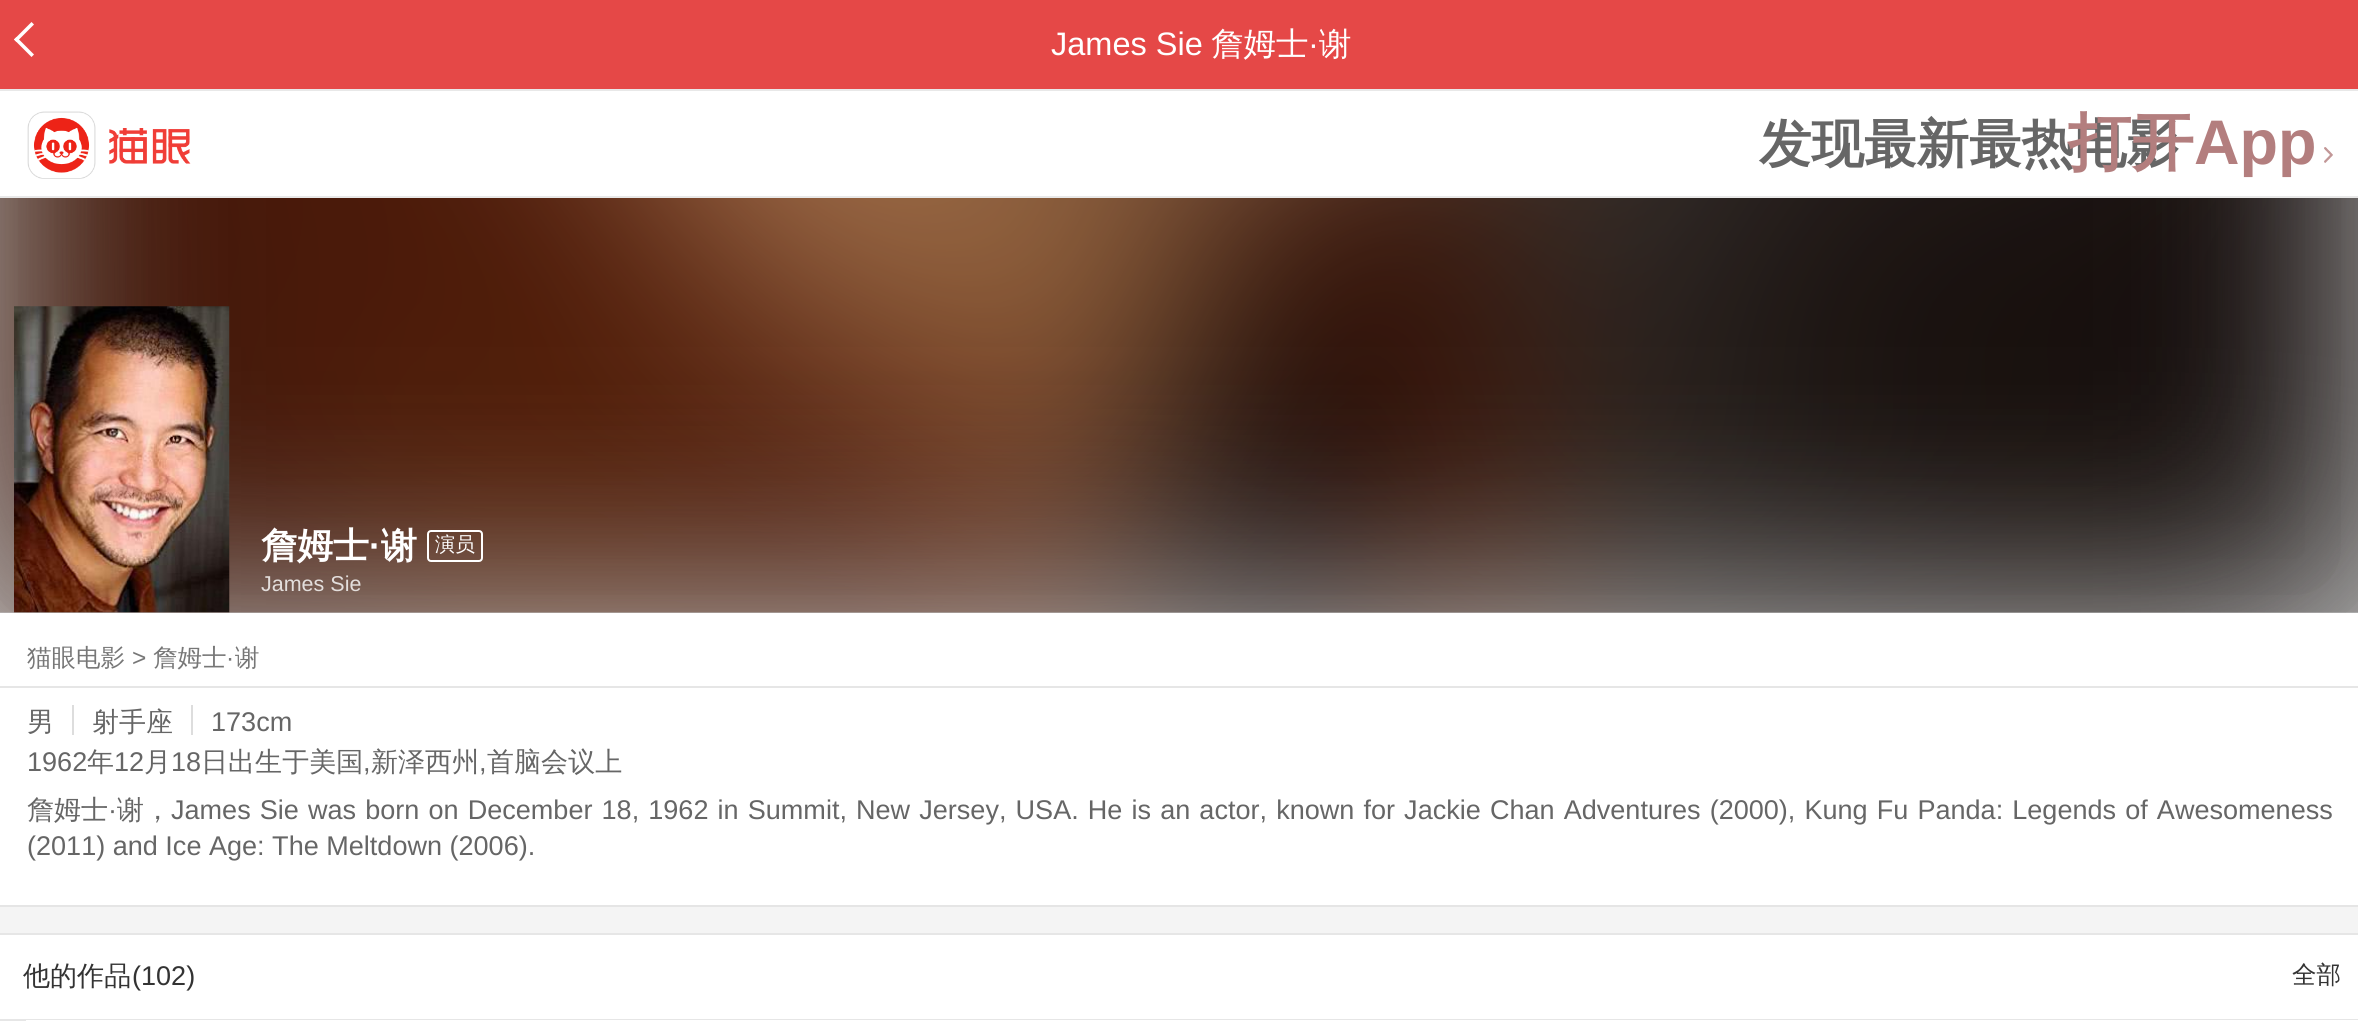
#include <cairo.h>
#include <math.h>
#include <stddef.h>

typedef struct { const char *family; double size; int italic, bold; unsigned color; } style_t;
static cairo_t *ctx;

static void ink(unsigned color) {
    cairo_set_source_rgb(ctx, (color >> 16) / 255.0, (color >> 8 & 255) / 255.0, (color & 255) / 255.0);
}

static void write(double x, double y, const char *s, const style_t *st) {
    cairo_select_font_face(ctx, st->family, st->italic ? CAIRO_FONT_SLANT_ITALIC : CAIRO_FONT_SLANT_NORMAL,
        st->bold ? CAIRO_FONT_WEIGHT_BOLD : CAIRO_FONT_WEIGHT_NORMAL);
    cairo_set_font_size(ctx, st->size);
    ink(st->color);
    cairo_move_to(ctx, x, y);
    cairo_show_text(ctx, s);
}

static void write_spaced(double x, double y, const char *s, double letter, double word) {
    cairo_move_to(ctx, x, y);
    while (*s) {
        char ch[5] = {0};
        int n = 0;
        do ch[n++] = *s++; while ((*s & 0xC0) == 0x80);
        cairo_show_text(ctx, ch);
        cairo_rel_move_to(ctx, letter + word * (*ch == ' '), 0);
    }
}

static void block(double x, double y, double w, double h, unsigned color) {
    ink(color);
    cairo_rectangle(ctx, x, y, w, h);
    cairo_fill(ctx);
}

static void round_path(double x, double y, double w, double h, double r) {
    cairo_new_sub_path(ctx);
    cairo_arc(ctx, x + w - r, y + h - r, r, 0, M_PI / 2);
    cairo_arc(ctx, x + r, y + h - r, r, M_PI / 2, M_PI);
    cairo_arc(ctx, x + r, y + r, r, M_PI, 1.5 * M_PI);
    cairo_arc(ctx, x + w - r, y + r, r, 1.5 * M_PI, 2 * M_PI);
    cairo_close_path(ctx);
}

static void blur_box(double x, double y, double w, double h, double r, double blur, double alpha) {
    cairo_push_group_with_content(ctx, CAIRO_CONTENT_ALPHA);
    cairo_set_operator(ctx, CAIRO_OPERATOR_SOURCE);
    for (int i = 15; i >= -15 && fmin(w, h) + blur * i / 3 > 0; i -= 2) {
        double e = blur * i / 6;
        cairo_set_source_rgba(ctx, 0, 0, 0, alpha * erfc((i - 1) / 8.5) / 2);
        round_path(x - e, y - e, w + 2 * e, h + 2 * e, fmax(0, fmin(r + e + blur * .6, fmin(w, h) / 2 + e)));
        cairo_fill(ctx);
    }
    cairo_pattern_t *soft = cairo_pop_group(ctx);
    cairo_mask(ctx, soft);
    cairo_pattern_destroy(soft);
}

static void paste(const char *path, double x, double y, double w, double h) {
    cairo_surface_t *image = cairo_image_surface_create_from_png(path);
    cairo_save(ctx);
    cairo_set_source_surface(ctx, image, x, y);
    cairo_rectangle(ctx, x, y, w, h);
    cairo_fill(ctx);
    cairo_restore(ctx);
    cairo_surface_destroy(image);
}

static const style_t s1 = {"Liberation Sans", 32.5, 0, 0, 0xffffff};
static const style_t s2 = {"WenQuanYi Zen Hei Medium", 32.5, 0, 0, 0xffffff};
static const style_t s3 = {"WenQuanYi Zen Hei", 52.5, 0, 1, 0x666666};
static const style_t s4 = {"WenQuanYi Zen Hei", 63, 0, 1, 0xb37e7e};
static const style_t s5 = {"Liberation Sans", 63, 0, 1, 0xb37e7e};
static const style_t s6 = {"WenQuanYi Zen Hei", 36, 0, 1, 0xffffff};
static const style_t s7 = {"Liberation Sans", 36, 0, 1, 0xffffff};
static const style_t s8 = {"WenQuanYi Zen Hei Medium", 20, 0, 0, 0xffffff};
static const style_t s9 = {"Liberation Sans", 21.5, 0, 0, 0xe3dedc};
static const style_t s10 = {"WenQuanYi Zen Hei Medium", 24.5, 0, 0, 0x777777};
static const style_t s11 = {"Liberation Sans", 24.5, 0, 0, 0x777777};
static const style_t s12 = {"WenQuanYi Zen Hei Medium", 27.05, 0, 0, 0x666666};
static const style_t s13 = {"Liberation Sans", 27.05, 0, 0, 0x666666};
static const style_t s14 = {"WenQuanYi Zen Hei Medium", 27.05, 0, 0, 0x333333};
static const style_t s15 = {"Liberation Sans", 27.05, 0, 0, 0x333333};
static const style_t s16 = {"WenQuanYi Zen Hei Medium", 24.5, 0, 0, 0x333333};

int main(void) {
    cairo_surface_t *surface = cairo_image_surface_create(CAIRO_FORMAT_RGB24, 2358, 1021);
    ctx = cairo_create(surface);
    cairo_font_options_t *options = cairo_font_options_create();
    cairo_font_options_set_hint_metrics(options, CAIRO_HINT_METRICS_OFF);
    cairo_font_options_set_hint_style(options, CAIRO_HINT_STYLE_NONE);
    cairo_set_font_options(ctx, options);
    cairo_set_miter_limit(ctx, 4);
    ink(0xf4f4f4);
    cairo_paint(ctx);
    block(0, 0, 2358, 89, 0xe54847);
    block(0, 613, 2358, 292, 0xffffff);
    block(0, 198, 2358, 415, 0xcccccc);
    block(0, 905, 2358, 2, 0xe5e5e5);
    block(0, 935, 2358, 84, 0xffffff);
    block(0, 933, 2358, 2, 0xe6e6e6);
    cairo_save(ctx);
    cairo_rectangle(ctx, 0, 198, 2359, 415);
    cairo_clip(ctx);
    ink(0xadadad);
    blur_box(0, -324, 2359, 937, 0, 108, 1);
    cairo_restore(ctx);
    ink(0xffffff);
    cairo_new_path(ctx);
    cairo_move_to(ctx, 16.5, 37);
    cairo_line_to(ctx, 34, 54.5);
    cairo_line_to(ctx, 31.5, 57);
    cairo_line_to(ctx, 14, 39.5);
    cairo_close_path(ctx);
    cairo_fill(ctx);
    cairo_new_path(ctx);
    cairo_move_to(ctx, 31.5, 22);
    cairo_line_to(ctx, 34, 24.5);
    cairo_line_to(ctx, 16.5, 42);
    cairo_line_to(ctx, 14, 39.5);
    cairo_close_path(ctx);
    cairo_fill(ctx);
    write(1051, 55, "James Sie", &s1);
    write(1211, 55, "詹姆士", &s2);
    write(1308, 55, "·", &s1);
    write(1319, 55, "谢", &s2);
    block(0, 91, 2358, 105, 0xffffff);
    block(0, 89, 2358, 2, 0xe8e8e8);
    block(0, 196, 2358, 2, 0xe8e8e8);
    paste("pic1.png", 27, 111, 164, 68);
    write(1759, 162, "发现最新最热电影", &s3);
    write(2068, 164, "打开", &s4);
    write(2194, 164, "App", &s5);
    paste("pic2.png", 2324, 147, 9, 16);
    paste("pic3.png", 0, 198, 2358, 415);
    paste("pic4.png", 14, 306, 216, 307);
    write(261, 558, "詹姆士", &s6);
    write(369, 558, "·", &s7);
    write(381, 558, "谢", &s6);
    round_path(428, 531, 54, 30, 3);
    cairo_stroke(ctx);
    write(435, 551, "演员", &s8);
    write(261, 591, "James Sie", &s9);
    write(27, 666, "猫眼电影", &s10);
    write(132, 666, ">", &s11);
    write(153, 666, "詹姆士", &s10);
    write(226, 666, "·", &s11);
    write(235, 666, "谢", &s10);
    block(0, 686, 2358, 2, 0xe6e6e6);
    write(27, 731, "男", &s12);
    write(92, 731, "射手座", &s12);
    block(72, 705, 2, 30, 0xdddddd);
    write(211, 731, "173cm", &s13);
    block(191, 705, 2, 30, 0xdddddd);
    write(27, 771, "1962", &s13);
    write(87, 771, "年", &s12);
    write(114, 771, "12", &s13);
    write(144, 771, "月", &s12);
    write(171, 771, "18", &s13);
    write(201, 771, "日出生于美国", &s12);
    write(363, 771, ",", &s13);
    write(371, 771, "新泽西州", &s12);
    write(479, 771, ",", &s13);
    write(487, 771, "首脑会议上", &s12);
    write(27, 819, "詹姆士", &s12);
    write(108, 819, "·", &s13);
    write(117, 819, "谢，", &s12);
    cairo_select_font_face(ctx, "Liberation Sans", CAIRO_FONT_SLANT_NORMAL, CAIRO_FONT_WEIGHT_NORMAL);
    write_spaced(171, 819, "James Sie was born on December 18, 1962 in Summit, New Jersey, USA. He is an actor, known for Jackie Chan Adventures (2000), Kung Fu Panda: Legends of Awesomeness", 0, 1.6);
    write(27, 855, "(2011) and Ice Age: The Meltdown (2006).", &s13);
    block(0, 1019, 2358, 2, 0xe6e6e6);
    write(23, 985, "他的作品", &s14);
    write(132, 985, "(102)", &s15);
    write(2292, 983, "全部", &s16);
    block(26, 1020, 2332, 1, 0xffffff);
    cairo_surface_write_to_png(surface, "screenshot.png");
    cairo_font_options_destroy(options);
    cairo_destroy(ctx);
    cairo_surface_destroy(surface);
    return 0;
}
